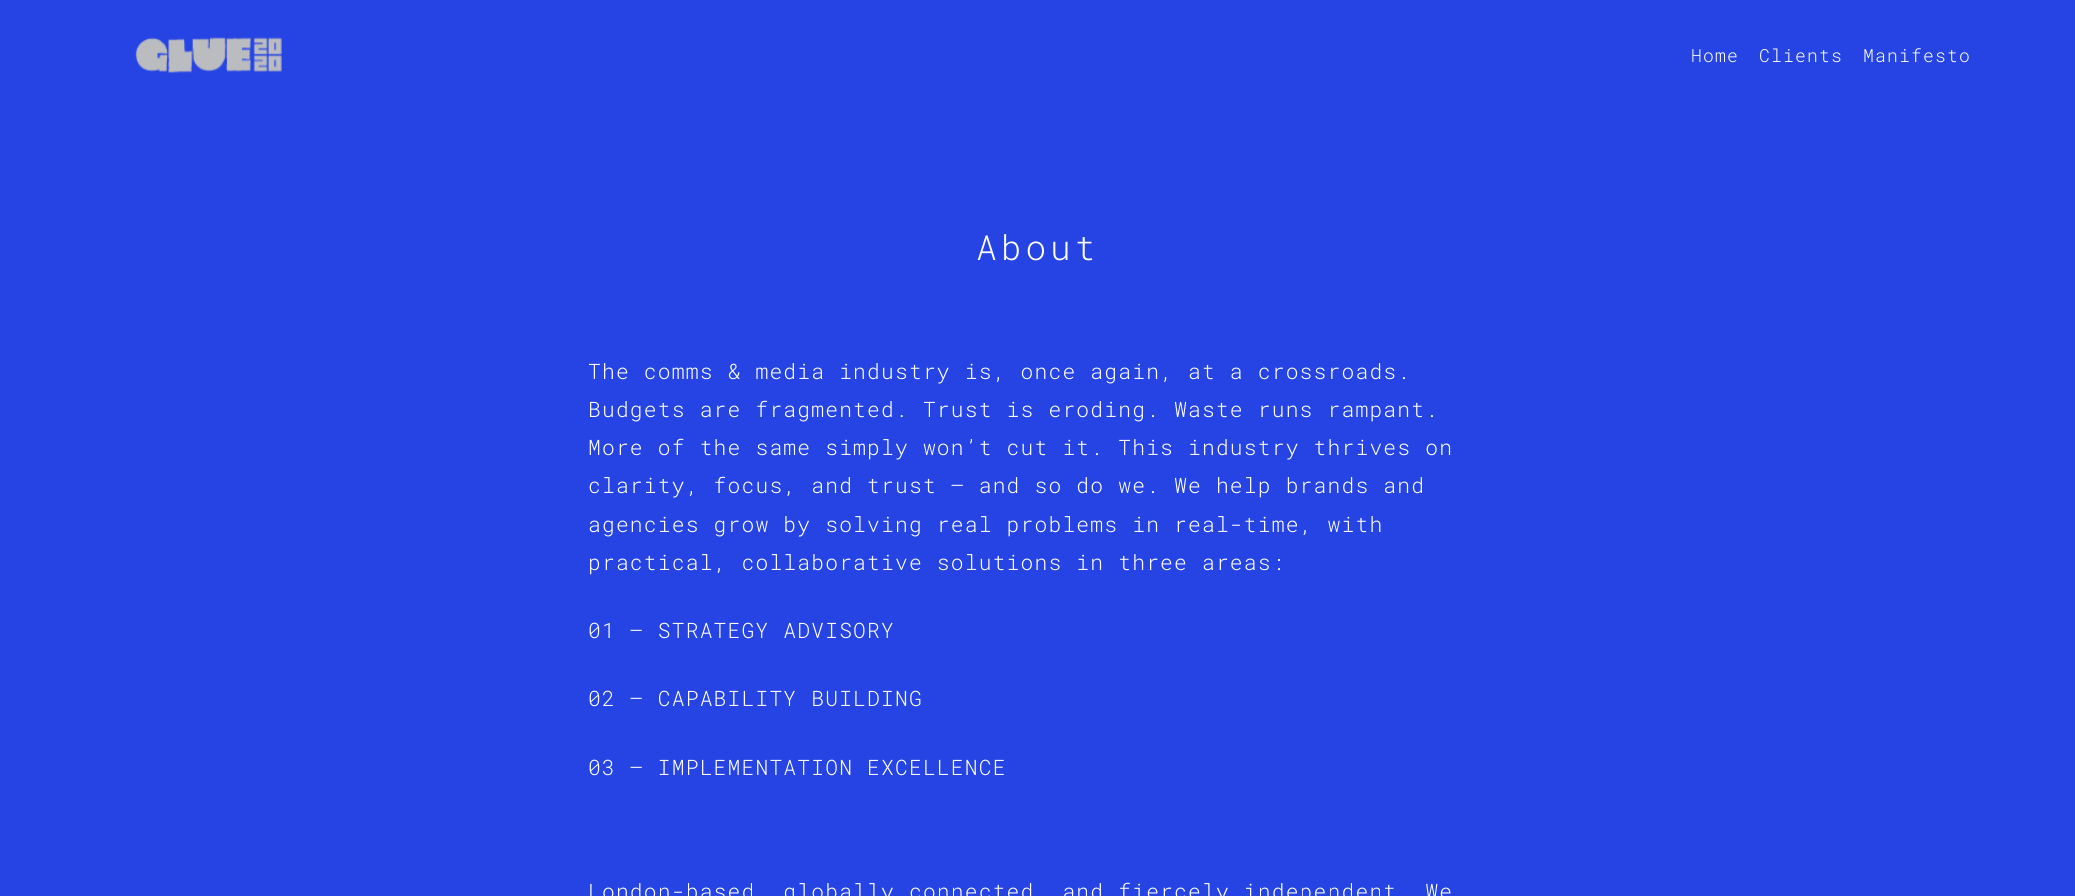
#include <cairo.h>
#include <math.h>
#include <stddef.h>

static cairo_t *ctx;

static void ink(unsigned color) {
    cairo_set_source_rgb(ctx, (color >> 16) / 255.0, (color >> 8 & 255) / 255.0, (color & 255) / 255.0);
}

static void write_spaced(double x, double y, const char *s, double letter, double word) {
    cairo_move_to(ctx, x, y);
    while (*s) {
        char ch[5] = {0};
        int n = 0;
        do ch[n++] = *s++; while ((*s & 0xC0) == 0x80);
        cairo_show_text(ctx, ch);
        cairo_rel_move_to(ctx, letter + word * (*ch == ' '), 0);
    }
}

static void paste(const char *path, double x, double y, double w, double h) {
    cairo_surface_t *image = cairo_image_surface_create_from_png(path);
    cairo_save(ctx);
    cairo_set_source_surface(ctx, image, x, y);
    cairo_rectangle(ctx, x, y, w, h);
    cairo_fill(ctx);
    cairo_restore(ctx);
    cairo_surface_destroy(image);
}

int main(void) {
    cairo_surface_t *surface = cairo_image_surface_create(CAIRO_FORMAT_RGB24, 2075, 896);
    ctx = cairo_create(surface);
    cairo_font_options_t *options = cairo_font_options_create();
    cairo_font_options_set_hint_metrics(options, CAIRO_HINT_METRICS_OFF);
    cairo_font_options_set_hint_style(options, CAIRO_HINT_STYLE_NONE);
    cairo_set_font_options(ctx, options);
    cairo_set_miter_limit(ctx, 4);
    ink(0x2544e3);
    cairo_paint(ctx);
    paste("pic1.png", 135, 37, 147, 37);
    cairo_select_font_face(ctx, "Roboto Mono Light", CAIRO_FONT_SLANT_NORMAL, CAIRO_FONT_WEIGHT_NORMAL);
    cairo_set_font_size(ctx, 18);
    ink(0xffffff);
    write_spaced(1691, 62, "Home", 1.2, 0);
    write_spaced(1759, 62, "Clients", 1.2, 0);
    write_spaced(1863, 62, "Manifesto", 1.2, 0);
    cairo_set_font_size(ctx, 34.5);
    write_spaced(976, 260, "About", 4, 0);
    cairo_set_font_size(ctx, 21.25);
    write_spaced(588, 379, "The comms & media industry is, once again, at a crossroads.", 1.2, 0);
    write_spaced(588, 417, "Budgets are fragmented. Trust is eroding. Waste runs rampant.", 1.2, 0);
    write_spaced(588, 455, "More of the same simply won’t cut it. This industry thrives on", 1.2, 0);
    write_spaced(588, 493, "clarity, focus, and trust – and so do we. We help brands and", 1.2, 0);
    write_spaced(588, 532, "agencies grow by solving real problems in real-time, with", 1.2, 0);
    write_spaced(588, 570, "practical, collaborative solutions in three areas:", 1.2, 0);
    write_spaced(588, 638, "01 – STRATEGY ADVISORY", 1.2, 0);
    write_spaced(588, 706, "02 – CAPABILITY BUILDING", 1.2, 0);
    write_spaced(588, 775, "03 – IMPLEMENTATION EXCELLENCE", 1.2, 0);
    write_spaced(588, 899, "London-based, globally connected, and fiercely independent. We", 1.2, 0);
    cairo_surface_write_to_png(surface, "screenshot.png");
    cairo_font_options_destroy(options);
    cairo_destroy(ctx);
    cairo_surface_destroy(surface);
    return 0;
}
